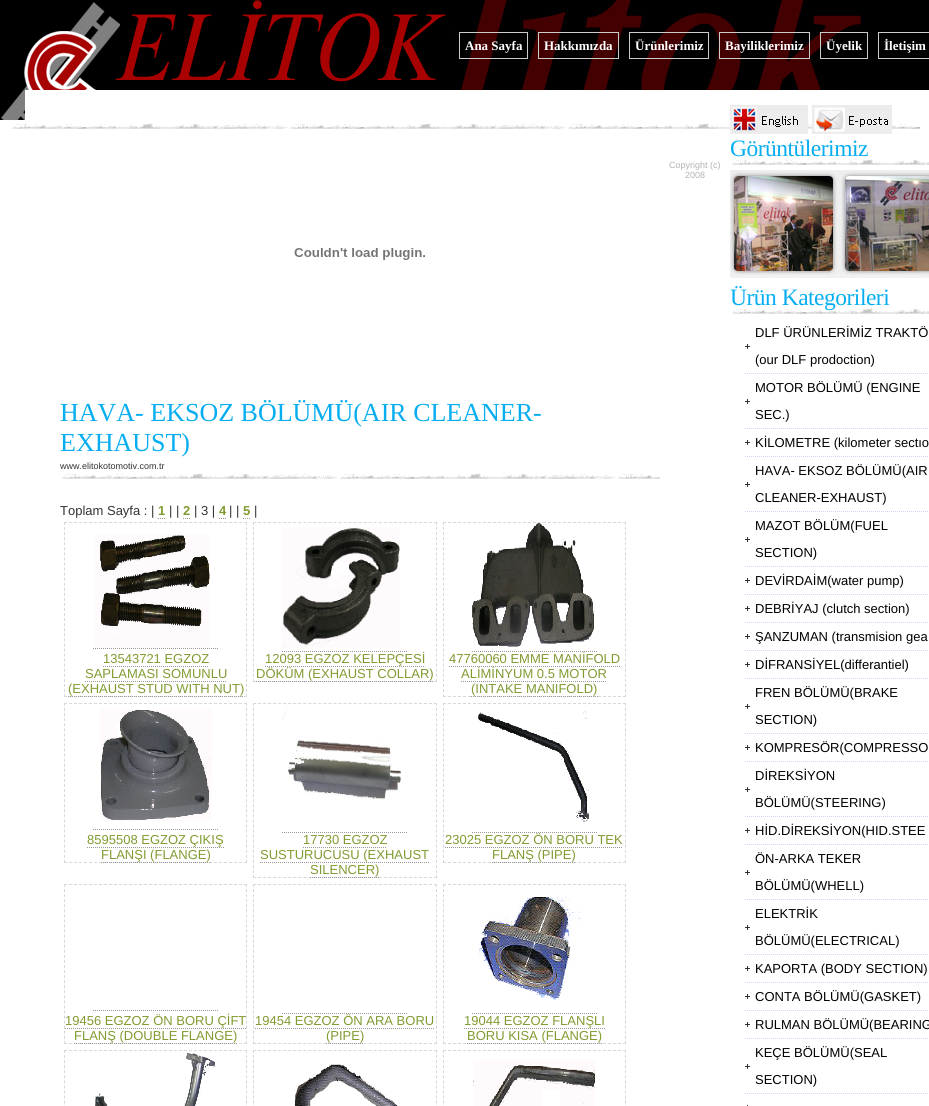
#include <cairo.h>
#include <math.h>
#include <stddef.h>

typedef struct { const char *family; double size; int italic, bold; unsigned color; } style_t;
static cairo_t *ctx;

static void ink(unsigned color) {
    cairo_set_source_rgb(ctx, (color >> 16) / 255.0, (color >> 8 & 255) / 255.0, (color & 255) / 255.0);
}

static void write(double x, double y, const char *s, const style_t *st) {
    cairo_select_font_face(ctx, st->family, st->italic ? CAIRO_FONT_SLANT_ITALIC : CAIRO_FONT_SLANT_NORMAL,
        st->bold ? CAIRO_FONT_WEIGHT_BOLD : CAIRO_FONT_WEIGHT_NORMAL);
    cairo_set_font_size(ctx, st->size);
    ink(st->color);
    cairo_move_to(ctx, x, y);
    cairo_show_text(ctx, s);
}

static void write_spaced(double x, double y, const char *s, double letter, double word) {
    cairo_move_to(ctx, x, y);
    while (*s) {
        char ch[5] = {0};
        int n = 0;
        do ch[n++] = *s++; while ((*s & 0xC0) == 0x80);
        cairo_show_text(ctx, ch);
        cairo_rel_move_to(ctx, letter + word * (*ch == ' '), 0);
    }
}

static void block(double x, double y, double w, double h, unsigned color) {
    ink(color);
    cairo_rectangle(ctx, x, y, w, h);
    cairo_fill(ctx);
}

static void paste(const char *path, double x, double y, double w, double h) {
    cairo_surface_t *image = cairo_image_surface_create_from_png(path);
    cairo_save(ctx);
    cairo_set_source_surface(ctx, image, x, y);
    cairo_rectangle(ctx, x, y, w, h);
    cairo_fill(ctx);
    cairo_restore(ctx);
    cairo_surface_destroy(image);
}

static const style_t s1 = {"Liberation Serif", 13, 0, 1, 0xffffff};
static const style_t s2 = {"Liberation Serif", 26, 0, 0, 0x06aef1};
static const style_t s3 = {"Liberation Sans", 9, 0, 0, 0x333333};
static const style_t s4 = {"Liberation Sans", 13, 0, 0, 0x333333};
static const style_t s5 = {"Liberation Sans", 13, 0, 1, 0x809b30};
static const style_t s6 = {"Liberation Sans", 13, 0, 0, 0x809b30};
static const style_t s7 = {"Liberation Sans", 13, 0, 0, 0x000000};
static const style_t s8 = {"Liberation Sans", 9, 0, 0, 0xb2b2b2};

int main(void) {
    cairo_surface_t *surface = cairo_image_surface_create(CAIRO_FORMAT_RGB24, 929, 1106);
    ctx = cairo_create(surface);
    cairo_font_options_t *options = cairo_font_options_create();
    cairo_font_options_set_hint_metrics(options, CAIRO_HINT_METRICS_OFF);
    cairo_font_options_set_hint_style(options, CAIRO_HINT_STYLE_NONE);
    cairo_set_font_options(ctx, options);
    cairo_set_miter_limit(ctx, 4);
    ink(0xffffff);
    cairo_paint(ctx);
    paste("pic1.png", 0, 0, 929, 120);
    paste("pic2.png", 1, 0, 449, 120);
    cairo_rectangle(ctx, 459.5, 32.5, 68, 26);
    ink(0xcccccc);
    cairo_set_line_width(ctx, 1);
    cairo_stroke(ctx);
    write(465, 50, "Ana Sayfa", &s1);
    cairo_rectangle(ctx, 538.5, 32.5, 80, 26);
    ink(0xcccccc);
    cairo_stroke(ctx);
    write(544, 50, "Hakkımızda", &s1);
    cairo_rectangle(ctx, 629.5, 32.5, 79, 26);
    ink(0xcccccc);
    cairo_stroke(ctx);
    write(635, 50, "Ürünlerimiz", &s1);
    cairo_rectangle(ctx, 719.5, 32.5, 90, 26);
    ink(0xcccccc);
    cairo_stroke(ctx);
    write(725, 50, "Bayiliklerimiz", &s1);
    cairo_rectangle(ctx, 820.5, 32.5, 47, 26);
    ink(0xcccccc);
    cairo_stroke(ctx);
    write(826, 50, "Üyelik", &s1);
    cairo_rectangle(ctx, 878.5, 32.5, 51, 26);
    ink(0xcccccc);
    cairo_stroke(ctx);
    write(884, 50, "İletişim", &s1);
    block(25, 90, 904, 30, 0xffffff);
    paste("pic3.png", 294, 248, 131, 12);
    write(60, 421, "HAVA- EKSOZ BÖLÜMÜ(AIR CLEANER-", &s2);
    write(60, 451, "EXHAUST)", &s2);
    paste("pic4.png", 62, 473, 598, 6);
    write(60, 469, "www.elitokotomotiv.com.tr", &s3);
    write(60, 515, "Toplam Sayfa : |", &s4);
    write(158, 515, "1", &s5);
    cairo_new_path(ctx);
    cairo_move_to(ctx, 158, 518.5);
    cairo_line_to(ctx, 159, 518.5);
    cairo_move_to(ctx, 160, 518.5);
    cairo_line_to(ctx, 161, 518.5);
    cairo_move_to(ctx, 162, 518.5);
    cairo_line_to(ctx, 163, 518.5);
    cairo_move_to(ctx, 164, 518.5);
    cairo_line_to(ctx, 165, 518.5);
    ink(0x999999);
    cairo_stroke(ctx);
    write(169, 515, "| |", &s4);
    write(183, 515, "2", &s5);
    cairo_new_path(ctx);
    cairo_move_to(ctx, 183, 518.5);
    cairo_line_to(ctx, 184, 518.5);
    cairo_move_to(ctx, 185, 518.5);
    cairo_line_to(ctx, 186, 518.5);
    cairo_move_to(ctx, 187, 518.5);
    cairo_line_to(ctx, 188, 518.5);
    cairo_move_to(ctx, 189, 518.5);
    cairo_line_to(ctx, 190, 518.5);
    ink(0x999999);
    cairo_stroke(ctx);
    write(194, 515, "| 3 |", &s4);
    write(219, 515, "4", &s5);
    cairo_new_path(ctx);
    cairo_move_to(ctx, 219, 518.5);
    cairo_line_to(ctx, 220, 518.5);
    cairo_move_to(ctx, 221, 518.5);
    cairo_line_to(ctx, 222, 518.5);
    cairo_move_to(ctx, 223, 518.5);
    cairo_line_to(ctx, 224, 518.5);
    cairo_move_to(ctx, 225, 518.5);
    cairo_line_to(ctx, 226, 518.5);
    ink(0x999999);
    cairo_stroke(ctx);
    write(229, 515, "| |", &s4);
    write(243, 515, "5", &s5);
    cairo_new_path(ctx);
    cairo_move_to(ctx, 243, 518.5);
    cairo_line_to(ctx, 251, 518.5);
    ink(0x999999);
    cairo_set_dash(ctx, (double[]){1, 1}, 2, 0);
    cairo_stroke(ctx);
    write(254, 515, "|", &s4);
    cairo_new_path(ctx);
    cairo_move_to(ctx, 64, 522.5);
    cairo_line_to(ctx, 247, 522.5);
    ink(0xd5d8dd);
    cairo_set_dash(ctx, (double[]){3, 2}, 2, 0);
    cairo_stroke(ctx);
    cairo_new_path(ctx);
    cairo_move_to(ctx, 246.5, 522);
    cairo_line_to(ctx, 246.5, 697);
    cairo_set_dash(ctx, (double[]){3, 2.06}, 2, 0);
    cairo_stroke(ctx);
    cairo_new_path(ctx);
    cairo_move_to(ctx, 64, 696.5);
    cairo_line_to(ctx, 247, 696.5);
    cairo_set_dash(ctx, (double[]){3, 2}, 2, 0);
    cairo_stroke(ctx);
    cairo_new_path(ctx);
    cairo_move_to(ctx, 64.5, 522);
    cairo_line_to(ctx, 64.5, 697);
    cairo_set_dash(ctx, (double[]){3, 2.06}, 2, 0);
    cairo_stroke(ctx);
    paste("pic5.png", 95, 534, 115, 114);
    write(103, 663, "13543721 EGZOZ", &s6);
    cairo_new_path(ctx);
    cairo_move_to(ctx, 93, 648.5);
    cairo_line_to(ctx, 218, 648.5);
    ink(0x999999);
    cairo_set_dash(ctx, (double[]){1, 1}, 2, 0);
    cairo_stroke(ctx);
    write(85, 678, "SAPLAMASI SOMUNLU", &s6);
    cairo_new_path(ctx);
    cairo_move_to(ctx, 103, 666.5);
    cairo_line_to(ctx, 209, 666.5);
    ink(0x999999);
    cairo_stroke(ctx);
    cairo_new_path(ctx);
    cairo_move_to(ctx, 85, 681.5);
    cairo_line_to(ctx, 227, 681.5);
    cairo_stroke(ctx);
    write(68, 693, "(EXHAUST STUD WITH NUT)", &s6);
    cairo_new_path(ctx);
    cairo_move_to(ctx, 68, 696.5);
    cairo_line_to(ctx, 244, 696.5);
    ink(0x999999);
    cairo_stroke(ctx);
    cairo_new_path(ctx);
    cairo_move_to(ctx, 253, 522.5);
    cairo_line_to(ctx, 437, 522.5);
    ink(0xd5d8dd);
    cairo_set_dash(ctx, (double[]){3, 2.03}, 2, 0);
    cairo_stroke(ctx);
    cairo_new_path(ctx);
    cairo_move_to(ctx, 436.5, 522);
    cairo_line_to(ctx, 436.5, 682);
    cairo_set_dash(ctx, (double[]){3, 2.06}, 2, 0);
    cairo_stroke(ctx);
    cairo_new_path(ctx);
    cairo_move_to(ctx, 253, 681.5);
    cairo_line_to(ctx, 437, 681.5);
    cairo_set_dash(ctx, (double[]){3, 2.03}, 2, 0);
    cairo_stroke(ctx);
    cairo_new_path(ctx);
    cairo_move_to(ctx, 253.5, 522);
    cairo_line_to(ctx, 253.5, 682);
    cairo_set_dash(ctx, (double[]){3, 2.06}, 2, 0);
    cairo_stroke(ctx);
    paste("pic6.png", 282, 527, 118, 121);
    cairo_new_path(ctx);
    cairo_move_to(ctx, 282, 651.5);
    cairo_line_to(ctx, 407, 651.5);
    ink(0x999999);
    cairo_set_dash(ctx, (double[]){1, 1}, 2, 0);
    cairo_stroke(ctx);
    write(265, 663, "12093 EGZOZ KELEPÇESİ", &s6);
    write(256, 678, "DÖKÜM (EXHAUST COLLAR)", &s6);
    cairo_new_path(ctx);
    cairo_move_to(ctx, 265, 666.5);
    cairo_line_to(ctx, 425, 666.5);
    ink(0x999999);
    cairo_stroke(ctx);
    cairo_new_path(ctx);
    cairo_move_to(ctx, 256, 681.5);
    cairo_line_to(ctx, 434, 681.5);
    cairo_stroke(ctx);
    cairo_new_path(ctx);
    cairo_move_to(ctx, 443, 522.5);
    cairo_line_to(ctx, 626, 522.5);
    ink(0xd5d8dd);
    cairo_set_dash(ctx, (double[]){3, 2}, 2, 0);
    cairo_stroke(ctx);
    cairo_new_path(ctx);
    cairo_move_to(ctx, 625.5, 522);
    cairo_line_to(ctx, 625.5, 697);
    cairo_set_dash(ctx, (double[]){3, 2.06}, 2, 0);
    cairo_stroke(ctx);
    cairo_new_path(ctx);
    cairo_move_to(ctx, 443, 696.5);
    cairo_line_to(ctx, 626, 696.5);
    cairo_set_dash(ctx, (double[]){3, 2}, 2, 0);
    cairo_stroke(ctx);
    cairo_new_path(ctx);
    cairo_move_to(ctx, 443.5, 522);
    cairo_line_to(ctx, 443.5, 697);
    cairo_set_dash(ctx, (double[]){3, 2.06}, 2, 0);
    cairo_stroke(ctx);
    paste("pic7.png", 472, 523, 123, 124);
    cairo_new_path(ctx);
    cairo_move_to(ctx, 472, 651.5);
    cairo_line_to(ctx, 597, 651.5);
    ink(0x999999);
    cairo_set_dash(ctx, (double[]){1, 1}, 2, 0);
    cairo_stroke(ctx);
    write(449, 663, "47760060 EMME MANİFOLD", &s6);
    cairo_new_path(ctx);
    cairo_move_to(ctx, 449, 666.5);
    cairo_line_to(ctx, 620, 666.5);
    ink(0x999999);
    cairo_stroke(ctx);
    write(461, 678, "ALİMİNYUM 0.5 MOTOR", &s6);
    write(471, 693, "(INTAKE MANIFOLD)", &s6);
    cairo_new_path(ctx);
    cairo_move_to(ctx, 461, 681.5);
    cairo_line_to(ctx, 607, 681.5);
    ink(0x999999);
    cairo_stroke(ctx);
    cairo_new_path(ctx);
    cairo_move_to(ctx, 471, 696.5);
    cairo_line_to(ctx, 598, 696.5);
    cairo_stroke(ctx);
    cairo_new_path(ctx);
    cairo_move_to(ctx, 64, 703.5);
    cairo_line_to(ctx, 247, 703.5);
    ink(0xd5d8dd);
    cairo_set_dash(ctx, (double[]){3, 2}, 2, 0);
    cairo_stroke(ctx);
    cairo_new_path(ctx);
    cairo_move_to(ctx, 246.5, 703);
    cairo_line_to(ctx, 246.5, 863);
    cairo_set_dash(ctx, (double[]){3, 2.06}, 2, 0);
    cairo_stroke(ctx);
    cairo_new_path(ctx);
    cairo_move_to(ctx, 64, 862.5);
    cairo_line_to(ctx, 247, 862.5);
    cairo_set_dash(ctx, (double[]){3, 2}, 2, 0);
    cairo_stroke(ctx);
    cairo_new_path(ctx);
    cairo_move_to(ctx, 64.5, 703);
    cairo_line_to(ctx, 64.5, 863);
    cairo_set_dash(ctx, (double[]){3, 2.06}, 2, 0);
    cairo_stroke(ctx);
    paste("pic8.png", 100, 709, 112, 112);
    write(87, 844, "8595508 EGZOZ ÇIKIŞ", &s6);
    cairo_new_path(ctx);
    cairo_move_to(ctx, 93, 829.5);
    cairo_line_to(ctx, 218, 829.5);
    ink(0x999999);
    cairo_set_dash(ctx, (double[]){1, 1}, 2, 0);
    cairo_stroke(ctx);
    cairo_new_path(ctx);
    cairo_move_to(ctx, 87, 847.5);
    cairo_line_to(ctx, 224, 847.5);
    cairo_stroke(ctx);
    write(101, 859, "FLANŞI (FLANGE)", &s6);
    cairo_new_path(ctx);
    cairo_move_to(ctx, 101, 862.5);
    cairo_line_to(ctx, 211, 862.5);
    ink(0x999999);
    cairo_stroke(ctx);
    cairo_new_path(ctx);
    cairo_move_to(ctx, 253, 703.5);
    cairo_line_to(ctx, 437, 703.5);
    ink(0xd5d8dd);
    cairo_set_dash(ctx, (double[]){3, 2.03}, 2, 0);
    cairo_stroke(ctx);
    cairo_new_path(ctx);
    cairo_move_to(ctx, 436.5, 703);
    cairo_line_to(ctx, 436.5, 878);
    cairo_set_dash(ctx, (double[]){3, 2.06}, 2, 0);
    cairo_stroke(ctx);
    cairo_new_path(ctx);
    cairo_move_to(ctx, 253, 877.5);
    cairo_line_to(ctx, 437, 877.5);
    cairo_set_dash(ctx, (double[]){3, 2.03}, 2, 0);
    cairo_stroke(ctx);
    cairo_new_path(ctx);
    cairo_move_to(ctx, 253.5, 703);
    cairo_line_to(ctx, 253.5, 878);
    cairo_set_dash(ctx, (double[]){3, 2.06}, 2, 0);
    cairo_stroke(ctx);
    paste("pic9.png", 282, 706, 119, 94);
    cairo_new_path(ctx);
    cairo_move_to(ctx, 282, 832.5);
    cairo_line_to(ctx, 407, 832.5);
    ink(0x999999);
    cairo_set_dash(ctx, (double[]){1, 1}, 2, 0);
    cairo_stroke(ctx);
    write(303, 844, "17730 EGZOZ", &s6);
    cairo_new_path(ctx);
    cairo_move_to(ctx, 303, 847.5);
    cairo_line_to(ctx, 387, 847.5);
    ink(0x999999);
    cairo_stroke(ctx);
    write(260, 859, "SUSTURUCUSU (EXHAUST", &s6);
    cairo_new_path(ctx);
    cairo_move_to(ctx, 260, 862.5);
    cairo_line_to(ctx, 430, 862.5);
    ink(0x999999);
    cairo_stroke(ctx);
    write(310, 874, "SILENCER)", &s6);
    cairo_new_path(ctx);
    cairo_move_to(ctx, 310, 877.5);
    cairo_line_to(ctx, 380, 877.5);
    ink(0x999999);
    cairo_stroke(ctx);
    cairo_new_path(ctx);
    cairo_move_to(ctx, 443, 703.5);
    cairo_line_to(ctx, 626, 703.5);
    ink(0xd5d8dd);
    cairo_set_dash(ctx, (double[]){3, 2}, 2, 0);
    cairo_stroke(ctx);
    cairo_new_path(ctx);
    cairo_move_to(ctx, 625.5, 703);
    cairo_line_to(ctx, 625.5, 863);
    cairo_set_dash(ctx, (double[]){3, 2.06}, 2, 0);
    cairo_stroke(ctx);
    cairo_new_path(ctx);
    cairo_move_to(ctx, 443, 862.5);
    cairo_line_to(ctx, 626, 862.5);
    cairo_set_dash(ctx, (double[]){3, 2}, 2, 0);
    cairo_stroke(ctx);
    cairo_new_path(ctx);
    cairo_move_to(ctx, 443.5, 703);
    cairo_line_to(ctx, 443.5, 863);
    cairo_set_dash(ctx, (double[]){3, 2.06}, 2, 0);
    cairo_stroke(ctx);
    paste("pic10.png", 478, 711, 111, 111);
    cairo_new_path(ctx);
    cairo_move_to(ctx, 472, 832.5);
    cairo_line_to(ctx, 597, 832.5);
    ink(0x999999);
    cairo_set_dash(ctx, (double[]){1, 1}, 2, 0);
    cairo_stroke(ctx);
    write(445, 844, "23025 EGZOZ ÖN BORU TEK", &s6);
    write(492, 859, "FLANŞ (PIPE)", &s6);
    cairo_new_path(ctx);
    cairo_move_to(ctx, 445, 847.5);
    cairo_line_to(ctx, 623, 847.5);
    ink(0x999999);
    cairo_stroke(ctx);
    cairo_new_path(ctx);
    cairo_move_to(ctx, 492, 862.5);
    cairo_line_to(ctx, 576, 862.5);
    cairo_stroke(ctx);
    cairo_new_path(ctx);
    cairo_move_to(ctx, 64, 884.5);
    cairo_line_to(ctx, 247, 884.5);
    ink(0xd5d8dd);
    cairo_set_dash(ctx, (double[]){3, 2}, 2, 0);
    cairo_stroke(ctx);
    cairo_new_path(ctx);
    cairo_move_to(ctx, 246.5, 884);
    cairo_line_to(ctx, 246.5, 1044);
    cairo_set_dash(ctx, (double[]){3, 2.06}, 2, 0);
    cairo_stroke(ctx);
    cairo_new_path(ctx);
    cairo_move_to(ctx, 64, 1043.5);
    cairo_line_to(ctx, 247, 1043.5);
    cairo_set_dash(ctx, (double[]){3, 2}, 2, 0);
    cairo_stroke(ctx);
    cairo_new_path(ctx);
    cairo_move_to(ctx, 64.5, 884);
    cairo_line_to(ctx, 64.5, 1044);
    cairo_set_dash(ctx, (double[]){3, 2.06}, 2, 0);
    cairo_stroke(ctx);
    write(65, 1025, "19456 EGZOZ ÖN BORU ÇİFT", &s6);
    cairo_new_path(ctx);
    cairo_move_to(ctx, 93, 1010.5);
    cairo_line_to(ctx, 218, 1010.5);
    ink(0x999999);
    cairo_set_dash(ctx, (double[]){1, 1}, 2, 0);
    cairo_stroke(ctx);
    cairo_new_path(ctx);
    cairo_move_to(ctx, 65, 1028.5);
    cairo_line_to(ctx, 246, 1028.5);
    cairo_stroke(ctx);
    write(74, 1040, "FLANŞ (DOUBLE FLANGE)", &s6);
    cairo_new_path(ctx);
    cairo_move_to(ctx, 74, 1043.5);
    cairo_line_to(ctx, 237, 1043.5);
    ink(0x999999);
    cairo_stroke(ctx);
    cairo_new_path(ctx);
    cairo_move_to(ctx, 253, 884.5);
    cairo_line_to(ctx, 437, 884.5);
    ink(0xd5d8dd);
    cairo_set_dash(ctx, (double[]){3, 2.03}, 2, 0);
    cairo_stroke(ctx);
    cairo_new_path(ctx);
    cairo_move_to(ctx, 436.5, 884);
    cairo_line_to(ctx, 436.5, 1044);
    cairo_set_dash(ctx, (double[]){3, 2.06}, 2, 0);
    cairo_stroke(ctx);
    cairo_new_path(ctx);
    cairo_move_to(ctx, 253, 1043.5);
    cairo_line_to(ctx, 437, 1043.5);
    cairo_set_dash(ctx, (double[]){3, 2.03}, 2, 0);
    cairo_stroke(ctx);
    cairo_new_path(ctx);
    cairo_move_to(ctx, 253.5, 884);
    cairo_line_to(ctx, 253.5, 1044);
    cairo_set_dash(ctx, (double[]){3, 2.06}, 2, 0);
    cairo_stroke(ctx);
    cairo_new_path(ctx);
    cairo_move_to(ctx, 282, 1013.5);
    cairo_line_to(ctx, 407, 1013.5);
    ink(0x999999);
    cairo_set_dash(ctx, (double[]){1, 1}, 2, 0);
    cairo_stroke(ctx);
    write(255, 1025, "19454 EGZOZ ÖN ARA BORU", &s6);
    write(326, 1040, "(PIPE)", &s6);
    cairo_new_path(ctx);
    cairo_move_to(ctx, 255, 1028.5);
    cairo_line_to(ctx, 435, 1028.5);
    ink(0x999999);
    cairo_stroke(ctx);
    cairo_new_path(ctx);
    cairo_move_to(ctx, 326, 1043.5);
    cairo_line_to(ctx, 364, 1043.5);
    cairo_stroke(ctx);
    cairo_new_path(ctx);
    cairo_move_to(ctx, 443, 884.5);
    cairo_line_to(ctx, 626, 884.5);
    ink(0xd5d8dd);
    cairo_set_dash(ctx, (double[]){3, 2}, 2, 0);
    cairo_stroke(ctx);
    cairo_new_path(ctx);
    cairo_move_to(ctx, 625.5, 884);
    cairo_line_to(ctx, 625.5, 1044);
    cairo_set_dash(ctx, (double[]){3, 2.06}, 2, 0);
    cairo_stroke(ctx);
    cairo_new_path(ctx);
    cairo_move_to(ctx, 443, 1043.5);
    cairo_line_to(ctx, 626, 1043.5);
    cairo_set_dash(ctx, (double[]){3, 2}, 2, 0);
    cairo_stroke(ctx);
    cairo_new_path(ctx);
    cairo_move_to(ctx, 443.5, 884);
    cairo_line_to(ctx, 443.5, 1044);
    cairo_set_dash(ctx, (double[]){3, 2.06}, 2, 0);
    cairo_stroke(ctx);
    paste("pic11.png", 479, 897, 104, 103);
    cairo_new_path(ctx);
    cairo_move_to(ctx, 472, 1013.5);
    cairo_line_to(ctx, 597, 1013.5);
    ink(0x999999);
    cairo_set_dash(ctx, (double[]){1, 1}, 2, 0);
    cairo_stroke(ctx);
    write(464, 1025, "19044 EGZOZ FLANŞLI", &s6);
    cairo_new_path(ctx);
    cairo_move_to(ctx, 464, 1028.5);
    cairo_line_to(ctx, 605, 1028.5);
    ink(0x999999);
    cairo_stroke(ctx);
    write(467, 1040, "BORU KISA (FLANGE)", &s6);
    cairo_new_path(ctx);
    cairo_move_to(ctx, 467, 1043.5);
    cairo_line_to(ctx, 602, 1043.5);
    ink(0x999999);
    cairo_stroke(ctx);
    cairo_new_path(ctx);
    cairo_move_to(ctx, 64, 1050.5);
    cairo_line_to(ctx, 247, 1050.5);
    ink(0xd5d8dd);
    cairo_set_dash(ctx, (double[]){3, 2}, 2, 0);
    cairo_stroke(ctx);
    cairo_new_path(ctx);
    cairo_move_to(ctx, 246.5, 1050);
    cairo_line_to(ctx, 246.5, 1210);
    cairo_set_dash(ctx, (double[]){3, 2.06}, 2, 0);
    cairo_stroke(ctx);
    cairo_new_path(ctx);
    cairo_move_to(ctx, 64.5, 1050);
    cairo_line_to(ctx, 64.5, 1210);
    cairo_stroke(ctx);
    paste("pic12.png", 95, 1053, 121, 53);
    cairo_new_path(ctx);
    cairo_move_to(ctx, 253, 1050.5);
    cairo_line_to(ctx, 437, 1050.5);
    cairo_set_dash(ctx, (double[]){3, 2.03}, 2, 0);
    cairo_stroke(ctx);
    cairo_new_path(ctx);
    cairo_move_to(ctx, 436.5, 1050);
    cairo_line_to(ctx, 436.5, 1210);
    cairo_set_dash(ctx, (double[]){3, 2.06}, 2, 0);
    cairo_stroke(ctx);
    cairo_new_path(ctx);
    cairo_move_to(ctx, 253.5, 1050);
    cairo_line_to(ctx, 253.5, 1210);
    cairo_stroke(ctx);
    paste("pic13.png", 294, 1064, 104, 42);
    cairo_new_path(ctx);
    cairo_move_to(ctx, 443, 1050.5);
    cairo_line_to(ctx, 626, 1050.5);
    cairo_set_dash(ctx, (double[]){3, 2}, 2, 0);
    cairo_stroke(ctx);
    cairo_new_path(ctx);
    cairo_move_to(ctx, 625.5, 1050);
    cairo_line_to(ctx, 625.5, 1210);
    cairo_set_dash(ctx, (double[]){3, 2.06}, 2, 0);
    cairo_stroke(ctx);
    cairo_new_path(ctx);
    cairo_move_to(ctx, 443.5, 1050);
    cairo_line_to(ctx, 443.5, 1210);
    cairo_stroke(ctx);
    paste("pic14.png", 473, 1060, 122, 46);
    paste("pic20.png", 12, 123, 908, 6);
    paste("pic15.png", 730, 105, 78, 29);
    paste("pic16.png", 812, 105, 80, 29);
    paste("pic17.png", 732, 159, 197, 6);
    cairo_select_font_face(ctx, "Liberation Serif", CAIRO_FONT_SLANT_NORMAL, CAIRO_FONT_WEIGHT_NORMAL);
    cairo_set_font_size(ctx, 23.5);
    ink(0x06aef1);
    write_spaced(730, 156, "Görüntülerimiz", -0.5, 0);
    paste("pic18.png", 730, 170, 199, 108);
    paste("pic17.png", 732, 308, 197, 6);
    write_spaced(730, 305, "Ürün Kategorileri", -0.5, 0);
    paste("pic19.png", 745, 344, 5, 5);
    cairo_new_path(ctx);
    cairo_move_to(ctx, 745, 373.5);
    cairo_line_to(ctx, 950, 373.5);
    ink(0xd7d0f4);
    cairo_set_dash(ctx, (double[]){1, 1}, 2, 0);
    cairo_stroke(ctx);
    write(755, 337, "DLF ÜRÜNLERİMİZ TRAKTÖ", &s7);
    write(755, 364, "(our DLF prodoction)", &s7);
    paste("pic19.png", 745, 399, 5, 5);
    cairo_new_path(ctx);
    cairo_move_to(ctx, 745, 428.5);
    cairo_line_to(ctx, 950, 428.5);
    ink(0xd7d0f4);
    cairo_stroke(ctx);
    write(755, 392, "MOTOR BÖLÜMÜ (ENGINE", &s7);
    write(755, 419, "SEC.)", &s7);
    paste("pic19.png", 745, 440, 5, 5);
    cairo_new_path(ctx);
    cairo_move_to(ctx, 745, 456.5);
    cairo_line_to(ctx, 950, 456.5);
    ink(0xd7d0f4);
    cairo_stroke(ctx);
    write(755, 447, "KİLOMETRE (kilometer sectıo", &s7);
    paste("pic19.png", 745, 482, 5, 5);
    cairo_new_path(ctx);
    cairo_move_to(ctx, 745, 511.5);
    cairo_line_to(ctx, 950, 511.5);
    ink(0xd7d0f4);
    cairo_stroke(ctx);
    write(755, 475, "HAVA- EKSOZ BÖLÜMÜ(AIR", &s7);
    write(755, 502, "CLEANER-EXHAUST)", &s7);
    paste("pic19.png", 745, 537, 5, 5);
    cairo_new_path(ctx);
    cairo_move_to(ctx, 745, 566.5);
    cairo_line_to(ctx, 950, 566.5);
    ink(0xd7d0f4);
    cairo_stroke(ctx);
    write(755, 530, "MAZOT BÖLÜM(FUEL", &s7);
    write(755, 557, "SECTION)", &s7);
    paste("pic19.png", 745, 578, 5, 5);
    cairo_new_path(ctx);
    cairo_move_to(ctx, 745, 594.5);
    cairo_line_to(ctx, 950, 594.5);
    ink(0xd7d0f4);
    cairo_stroke(ctx);
    write(755, 585, "DEVİRDAİM(water pump)", &s7);
    paste("pic19.png", 745, 606, 5, 5);
    cairo_new_path(ctx);
    cairo_move_to(ctx, 745, 622.5);
    cairo_line_to(ctx, 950, 622.5);
    ink(0xd7d0f4);
    cairo_stroke(ctx);
    write(755, 613, "DEBRİYAJ (clutch section)", &s7);
    paste("pic19.png", 745, 634, 5, 5);
    cairo_new_path(ctx);
    cairo_move_to(ctx, 745, 650.5);
    cairo_line_to(ctx, 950, 650.5);
    ink(0xd7d0f4);
    cairo_stroke(ctx);
    write(755, 641, "ŞANZUMAN (transmision gea", &s7);
    paste("pic19.png", 745, 662, 5, 5);
    cairo_new_path(ctx);
    cairo_move_to(ctx, 745, 678.5);
    cairo_line_to(ctx, 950, 678.5);
    ink(0xd7d0f4);
    cairo_stroke(ctx);
    write(755, 669, "DİFRANSİYEL(differantiel)", &s7);
    paste("pic19.png", 745, 704, 5, 5);
    cairo_new_path(ctx);
    cairo_move_to(ctx, 745, 733.5);
    cairo_line_to(ctx, 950, 733.5);
    ink(0xd7d0f4);
    cairo_stroke(ctx);
    write(755, 697, "FREN BÖLÜMÜ(BRAKE", &s7);
    write(755, 724, "SECTION)", &s7);
    paste("pic19.png", 745, 745, 5, 5);
    cairo_new_path(ctx);
    cairo_move_to(ctx, 745, 761.5);
    cairo_line_to(ctx, 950, 761.5);
    ink(0xd7d0f4);
    cairo_stroke(ctx);
    write(755, 752, "KOMPRESÖR(COMPRESSO", &s7);
    paste("pic19.png", 745, 787, 5, 5);
    cairo_new_path(ctx);
    cairo_move_to(ctx, 745, 816.5);
    cairo_line_to(ctx, 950, 816.5);
    ink(0xd7d0f4);
    cairo_stroke(ctx);
    write(755, 780, "DİREKSİYON", &s7);
    write(755, 807, "BÖLÜMÜ(STEERING)", &s7);
    paste("pic19.png", 745, 828, 5, 5);
    cairo_new_path(ctx);
    cairo_move_to(ctx, 745, 844.5);
    cairo_line_to(ctx, 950, 844.5);
    ink(0xd7d0f4);
    cairo_stroke(ctx);
    write(755, 835, "HİD.DİREKSİYON(HID.STEE", &s7);
    paste("pic19.png", 745, 870, 5, 5);
    cairo_new_path(ctx);
    cairo_move_to(ctx, 745, 899.5);
    cairo_line_to(ctx, 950, 899.5);
    ink(0xd7d0f4);
    cairo_stroke(ctx);
    write(755, 863, "ÖN-ARKA TEKER", &s7);
    write(755, 890, "BÖLÜMÜ(WHELL)", &s7);
    paste("pic19.png", 745, 925, 5, 5);
    cairo_new_path(ctx);
    cairo_move_to(ctx, 745, 954.5);
    cairo_line_to(ctx, 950, 954.5);
    ink(0xd7d0f4);
    cairo_stroke(ctx);
    write(755, 918, "ELEKTRİK", &s7);
    write(755, 945, "BÖLÜMÜ(ELECTRICAL)", &s7);
    paste("pic19.png", 745, 966, 5, 5);
    cairo_new_path(ctx);
    cairo_move_to(ctx, 745, 982.5);
    cairo_line_to(ctx, 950, 982.5);
    ink(0xd7d0f4);
    cairo_stroke(ctx);
    write(755, 973, "KAPORTA (BODY SECTION)", &s7);
    paste("pic19.png", 745, 994, 5, 5);
    cairo_new_path(ctx);
    cairo_move_to(ctx, 745, 1010.5);
    cairo_line_to(ctx, 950, 1010.5);
    ink(0xd7d0f4);
    cairo_stroke(ctx);
    write(755, 1001, "CONTA BÖLÜMÜ(GASKET)", &s7);
    paste("pic19.png", 745, 1022, 5, 5);
    cairo_new_path(ctx);
    cairo_move_to(ctx, 745, 1038.5);
    cairo_line_to(ctx, 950, 1038.5);
    ink(0xd7d0f4);
    cairo_stroke(ctx);
    write(755, 1029, "RULMAN BÖLÜMÜ(BEARING", &s7);
    paste("pic19.png", 745, 1064, 5, 5);
    cairo_new_path(ctx);
    cairo_move_to(ctx, 745, 1093.5);
    cairo_line_to(ctx, 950, 1093.5);
    ink(0xd7d0f4);
    cairo_stroke(ctx);
    write(755, 1057, "KEÇE BÖLÜMÜ(SEAL", &s7);
    write(755, 1084, "SECTION)", &s7);
    block(747, 1105, 1, 1, 0x333333);
    write(669, 168, "Copyright (c)", &s8);
    write(685, 178, "2008", &s8);
    cairo_surface_write_to_png(surface, "screenshot.png");
    cairo_font_options_destroy(options);
    cairo_destroy(ctx);
    cairo_surface_destroy(surface);
    return 0;
}
